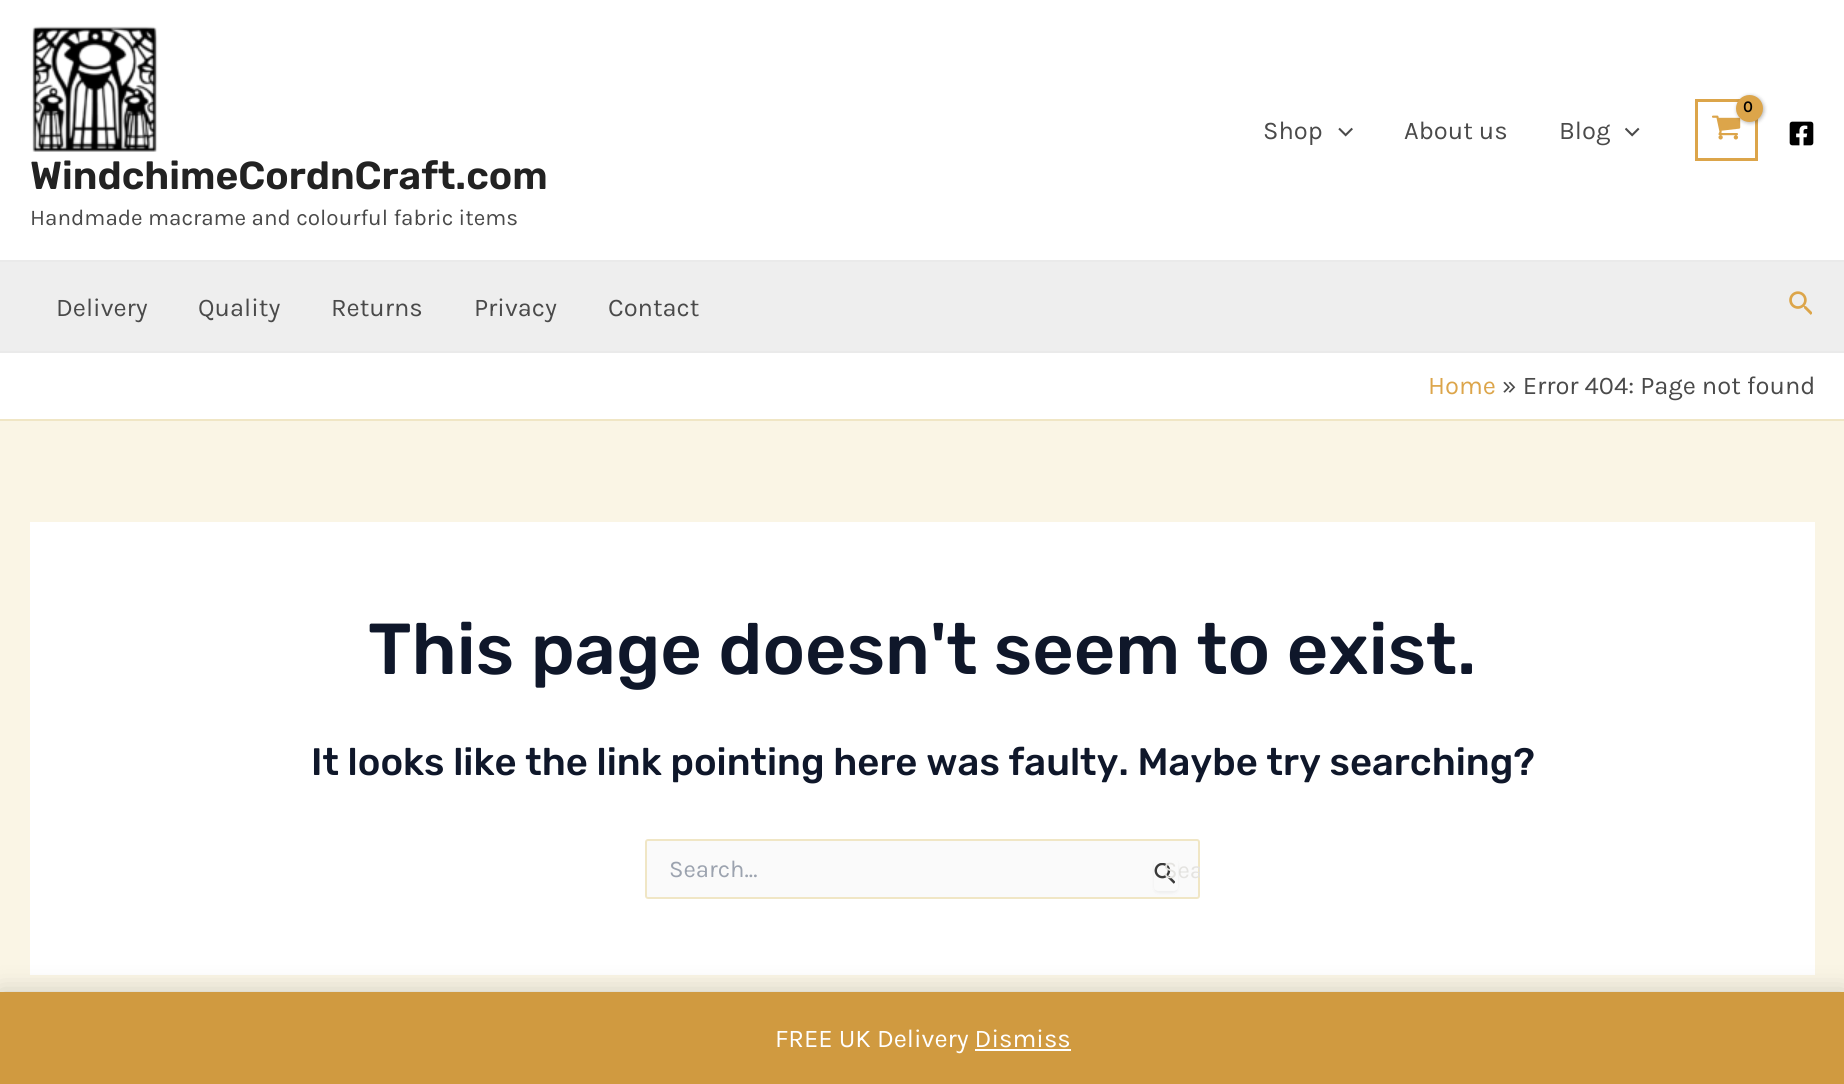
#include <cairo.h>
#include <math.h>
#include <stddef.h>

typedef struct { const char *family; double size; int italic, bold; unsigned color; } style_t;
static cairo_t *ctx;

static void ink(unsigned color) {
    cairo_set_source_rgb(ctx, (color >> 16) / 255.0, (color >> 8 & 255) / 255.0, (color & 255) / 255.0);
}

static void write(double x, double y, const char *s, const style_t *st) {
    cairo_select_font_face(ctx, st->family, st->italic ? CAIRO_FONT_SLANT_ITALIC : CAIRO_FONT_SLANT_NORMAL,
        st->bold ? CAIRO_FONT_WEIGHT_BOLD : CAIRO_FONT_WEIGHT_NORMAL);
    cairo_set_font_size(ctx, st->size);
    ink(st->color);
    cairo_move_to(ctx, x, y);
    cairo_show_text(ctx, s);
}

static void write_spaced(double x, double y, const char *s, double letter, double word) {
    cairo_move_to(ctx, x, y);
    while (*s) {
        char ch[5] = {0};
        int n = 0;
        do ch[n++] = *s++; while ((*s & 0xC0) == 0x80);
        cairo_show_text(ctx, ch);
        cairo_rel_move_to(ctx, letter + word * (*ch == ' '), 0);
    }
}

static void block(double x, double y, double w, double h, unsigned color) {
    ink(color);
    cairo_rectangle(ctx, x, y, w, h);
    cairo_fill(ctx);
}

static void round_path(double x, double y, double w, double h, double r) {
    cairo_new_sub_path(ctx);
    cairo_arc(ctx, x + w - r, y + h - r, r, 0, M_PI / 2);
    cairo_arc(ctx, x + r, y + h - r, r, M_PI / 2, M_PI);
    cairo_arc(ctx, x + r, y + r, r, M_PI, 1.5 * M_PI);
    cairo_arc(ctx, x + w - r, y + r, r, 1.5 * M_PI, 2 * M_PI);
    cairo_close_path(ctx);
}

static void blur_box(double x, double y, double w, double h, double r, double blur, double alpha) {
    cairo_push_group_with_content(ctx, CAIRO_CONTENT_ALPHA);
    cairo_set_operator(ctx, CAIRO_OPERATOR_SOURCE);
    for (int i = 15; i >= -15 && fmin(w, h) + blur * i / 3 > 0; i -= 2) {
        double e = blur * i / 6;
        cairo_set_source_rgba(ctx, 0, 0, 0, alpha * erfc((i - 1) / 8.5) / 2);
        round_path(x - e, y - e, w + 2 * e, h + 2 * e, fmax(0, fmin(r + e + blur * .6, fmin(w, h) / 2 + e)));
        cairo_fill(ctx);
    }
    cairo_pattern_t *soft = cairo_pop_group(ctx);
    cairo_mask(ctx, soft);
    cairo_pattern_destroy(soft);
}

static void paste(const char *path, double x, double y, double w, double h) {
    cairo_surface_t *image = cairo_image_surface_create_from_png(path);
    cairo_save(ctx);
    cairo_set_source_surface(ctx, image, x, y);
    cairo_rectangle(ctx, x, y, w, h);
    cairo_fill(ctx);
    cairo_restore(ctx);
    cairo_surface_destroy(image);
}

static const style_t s1 = {"Karla", 25.5, 0, 0, 0x4a4a4a};
static const style_t s2 = {"Rubik SemiBold", 39, 0, 0, 0x222222};
static const style_t s3 = {"Karla", 22.5, 0, 0, 0x4a4a4a};
static const style_t s4 = {"Karla", 25.5, 0, 0, 0xdca54a};
static const style_t s5 = {"Rubik Medium", 72, 0, 0, 0x0f172a};
static const style_t s6 = {"Rubik Medium", 38.25, 0, 0, 0x0f172a};
static const style_t s7 = {"Karla", 24, 0, 0, 0x9ca3af};
static const style_t s8 = {"Karla", 24, 0, 0, 0xe4e3e0};
static const style_t s9 = {"Karla", 25.5, 0, 0, 0xffffff};

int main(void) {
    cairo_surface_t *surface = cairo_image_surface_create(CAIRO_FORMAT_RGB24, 1844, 1084);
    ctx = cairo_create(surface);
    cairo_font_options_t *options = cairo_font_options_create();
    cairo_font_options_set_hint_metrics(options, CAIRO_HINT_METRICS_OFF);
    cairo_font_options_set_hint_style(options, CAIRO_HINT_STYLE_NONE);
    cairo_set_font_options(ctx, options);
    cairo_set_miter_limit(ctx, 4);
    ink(0xfaf5e5);
    cairo_paint(ctx);
    block(0, 0, 1844, 260, 0xffffff);
    block(0, 260, 1844, 2, 0xeaeaea);
    cairo_rectangle(ctx, 1696.5, 100.5, 60, 59);
    ink(0xdca54a);
    cairo_set_line_width(ctx, 3);
    cairo_stroke(ctx);
    paste("pic1.png", 1712, 115, 29, 25);
    ink(0x000000);
    blur_box(1737, 96, 27, 27, 13.5, 2, 0.3);
    ink(0xdca54a);
    cairo_arc(ctx, 1749.5, 108.5, 13.5, 0, 2 * M_PI);
    cairo_fill(ctx);
    cairo_select_font_face(ctx, "Karla", CAIRO_FONT_SLANT_NORMAL, CAIRO_FONT_WEIGHT_BOLD);
    cairo_set_font_size(ctx, 16);
    ink(0x000000);
    write_spaced(1743, 112, "0", -1, 0);
    write(1263, 139, "Shop", &s1);
    paste("pic2.png", 1338, 127, 15, 10);
    write(1404, 139, "About us", &s1);
    write(1559, 139, "Blog", &s1);
    paste("pic3.png", 1625, 127, 15, 10);
    paste("pic4.png", 1789, 121, 25, 25);
    paste("pic5.png", 32, 26, 126, 126);
    write(30, 189, "WindchimeCordnCraft.com", &s2);
    write(30, 225, "Handmade macrame and colourful fabric items", &s3);
    block(0, 262, 1844, 89, 0xeeeeee);
    block(0, 351, 1844, 2, 0xeaeaea);
    write(56, 316, "Delivery", &s1);
    write(198, 316, "Quality", &s1);
    write(331, 316, "Returns", &s1);
    write(474, 316, "Privacy", &s1);
    write(608, 316, "Contact", &s1);
    paste("pic6.png", 1789, 291, 23, 24);
    block(0, 353, 1844, 66, 0xffffff);
    block(0, 419, 1844, 2, 0xf0e6c5);
    write(1428, 394, "Home", &s4);
    write(1502, 394, "» Error 404: Page not found", &s1);
    block(30, 522, 1785, 453, 0xffffff);
    write(368, 674, "This page doesn't seem to exist.", &s5);
    write(311, 775, "It looks like the link pointing here was faulty. Maybe try searching?", &s6);
    ink(0xfafafa);
    round_path(646, 840, 553, 58, 2);
    cairo_fill_preserve(ctx);
    ink(0xf0e6c5);
    cairo_set_line_width(ctx, 2);
    cairo_stroke(ctx);
    write(669, 877, "Search...", &s7);
    cairo_save(ctx);
    cairo_set_fill_rule(ctx, CAIRO_FILL_RULE_EVEN_ODD);
    cairo_new_path(ctx);
    cairo_move_to(ctx, 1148, 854);
    cairo_line_to(ctx, 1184, 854);
    cairo_line_to(ctx, 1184, 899);
    cairo_line_to(ctx, 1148, 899);
    cairo_close_path(ctx);
    cairo_move_to(ctx, 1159, 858);
    cairo_line_to(ctx, 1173, 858);
    cairo_curve_to(ctx, 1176, 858, 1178, 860, 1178, 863);
    cairo_line_to(ctx, 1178, 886);
    cairo_curve_to(ctx, 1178, 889, 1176, 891, 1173, 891);
    cairo_line_to(ctx, 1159, 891);
    cairo_curve_to(ctx, 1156, 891, 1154, 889, 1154, 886);
    cairo_line_to(ctx, 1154, 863);
    cairo_curve_to(ctx, 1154, 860, 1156, 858, 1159, 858);
    cairo_close_path(ctx);
    cairo_clip(ctx);
    ink(0x000000);
    blur_box(1154, 860, 24, 33, 5, 1.5, 0.05);
    cairo_restore(ctx);
    paste("pic7.png", 1154, 863, 21, 21);
    cairo_save(ctx);
    round_path(1133, 839, 67, 63, 3);
    cairo_clip(ctx);
    write(1163, 878, "Sea", &s8);
    cairo_restore(ctx);
    ink(0x000000);
    blur_box(0, 993, 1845, 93, 0, 13, 0.2);
    block(0, 992, 1844, 92, 0xd09a40);
    write(775, 1047, "FREE UK Delivery Dismiss", &s9);
    block(975, 1049, 96, 2, 0xffffff);
    cairo_surface_write_to_png(surface, "screenshot.png");
    cairo_font_options_destroy(options);
    cairo_destroy(ctx);
    cairo_surface_destroy(surface);
    return 0;
}
